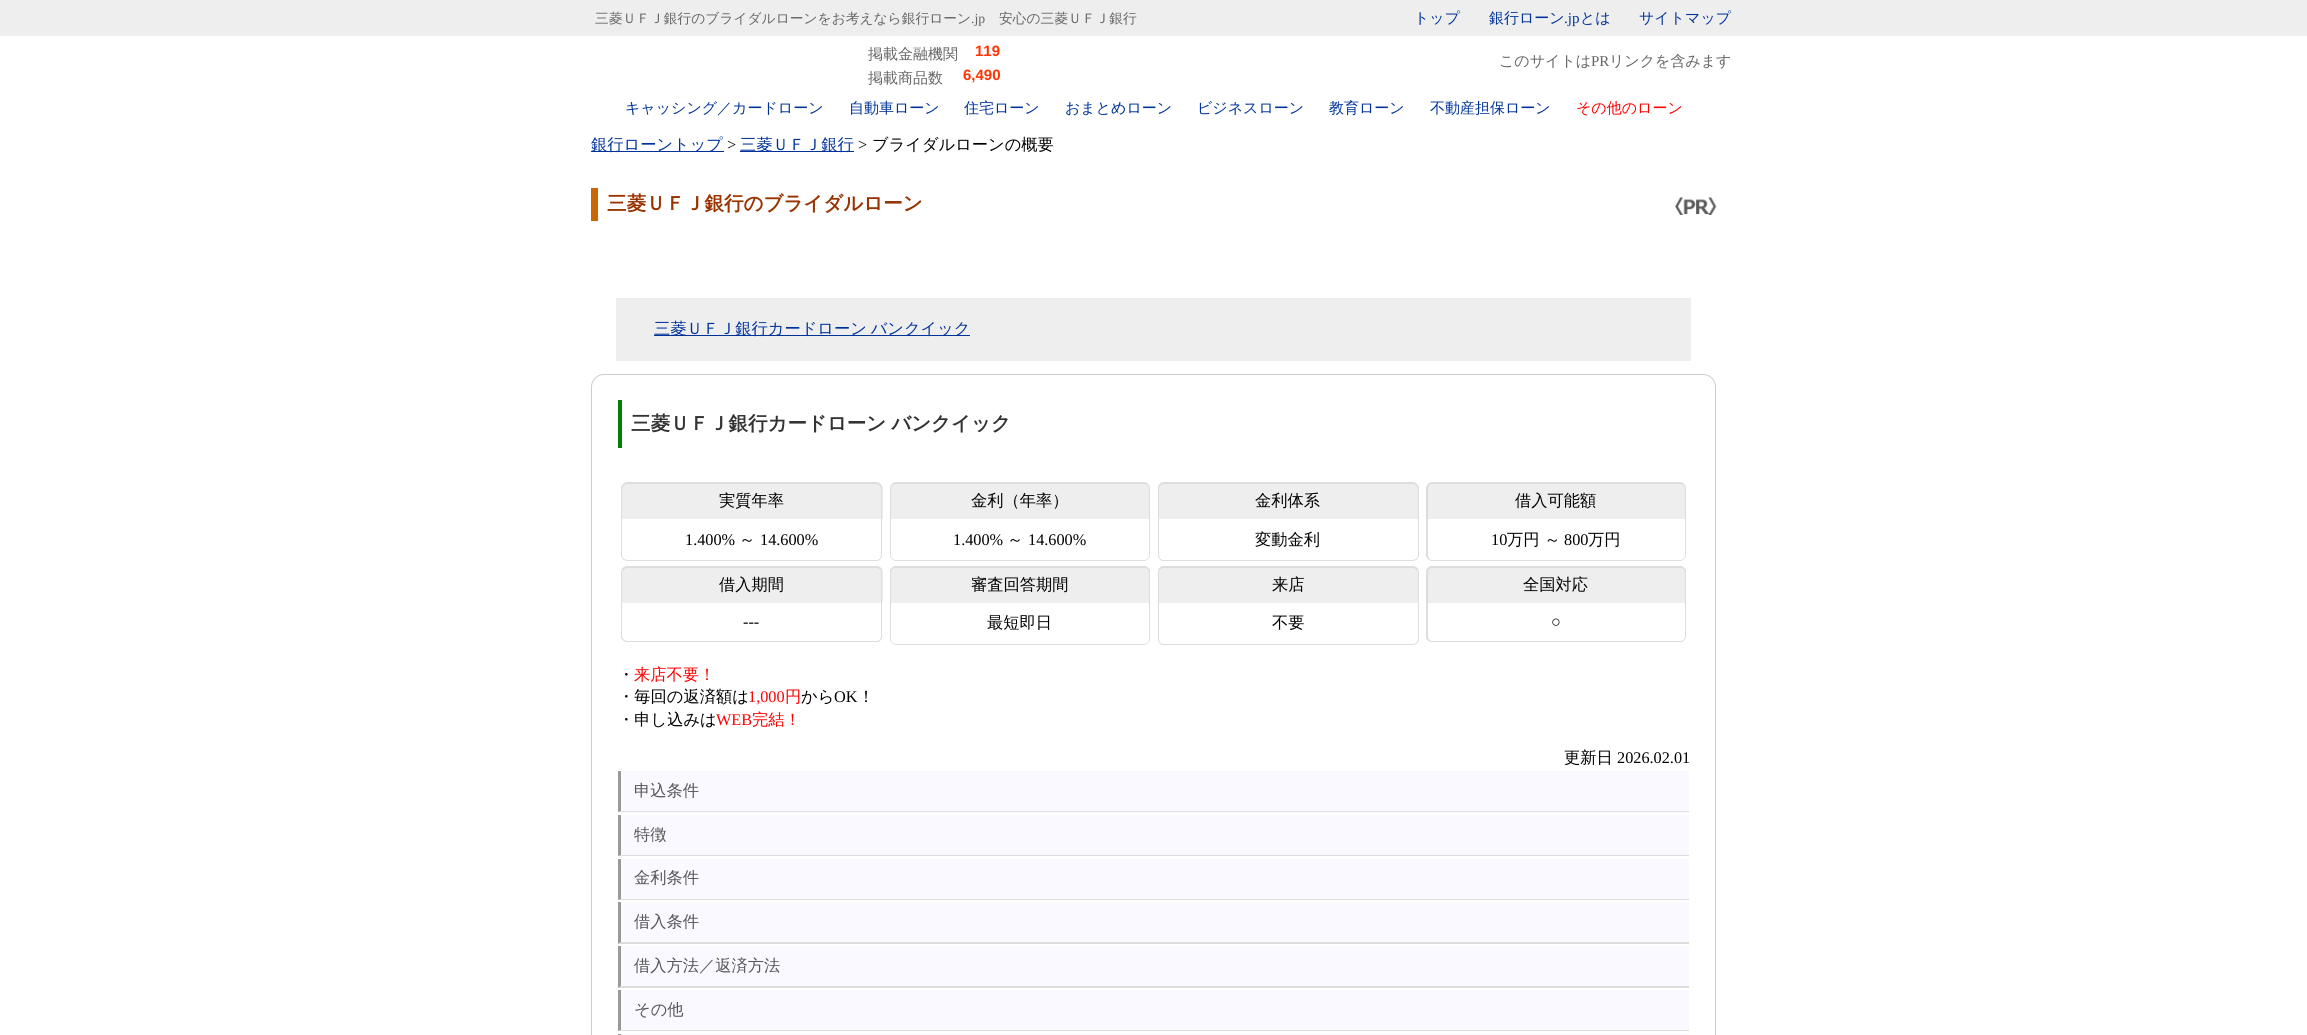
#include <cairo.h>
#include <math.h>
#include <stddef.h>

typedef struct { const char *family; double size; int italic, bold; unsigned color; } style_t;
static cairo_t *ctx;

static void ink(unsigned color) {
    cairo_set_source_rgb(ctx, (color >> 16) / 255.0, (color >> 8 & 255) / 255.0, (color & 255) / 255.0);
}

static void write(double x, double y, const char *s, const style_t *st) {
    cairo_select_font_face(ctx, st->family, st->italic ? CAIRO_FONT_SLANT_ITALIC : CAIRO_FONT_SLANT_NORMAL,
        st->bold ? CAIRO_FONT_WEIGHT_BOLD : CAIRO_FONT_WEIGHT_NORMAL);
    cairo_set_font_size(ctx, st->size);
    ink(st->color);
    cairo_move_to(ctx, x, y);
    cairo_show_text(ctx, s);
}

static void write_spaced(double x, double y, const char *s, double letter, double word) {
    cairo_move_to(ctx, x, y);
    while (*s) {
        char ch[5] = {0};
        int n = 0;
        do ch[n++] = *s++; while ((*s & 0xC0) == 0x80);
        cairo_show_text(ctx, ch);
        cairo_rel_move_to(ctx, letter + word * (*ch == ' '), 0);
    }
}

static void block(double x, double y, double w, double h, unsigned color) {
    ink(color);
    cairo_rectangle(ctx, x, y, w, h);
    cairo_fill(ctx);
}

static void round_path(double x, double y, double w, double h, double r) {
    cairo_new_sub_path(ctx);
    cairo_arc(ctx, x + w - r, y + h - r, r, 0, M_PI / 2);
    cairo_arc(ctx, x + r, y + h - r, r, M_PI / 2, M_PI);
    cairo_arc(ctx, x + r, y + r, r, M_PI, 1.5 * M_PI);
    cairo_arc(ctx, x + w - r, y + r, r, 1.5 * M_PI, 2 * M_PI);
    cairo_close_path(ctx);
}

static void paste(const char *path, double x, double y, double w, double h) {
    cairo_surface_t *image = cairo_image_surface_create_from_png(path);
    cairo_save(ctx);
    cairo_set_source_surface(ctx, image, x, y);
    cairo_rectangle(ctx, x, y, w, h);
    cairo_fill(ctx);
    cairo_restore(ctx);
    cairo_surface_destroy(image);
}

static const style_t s1 = {"WenQuanYi Zen Hei Medium", 13.75, 0, 0, 0x666666};
static const style_t s2 = {"Liberation Serif", 13.75, 0, 0, 0x666666};
static const style_t s3 = {"WenQuanYi Zen Hei Medium", 15, 0, 0, 0x003399};
static const style_t s4 = {"Liberation Serif", 15, 0, 0, 0x003399};
static const style_t s5 = {"WenQuanYi Zen Hei Medium", 15, 0, 0, 0x666666};
static const style_t s6 = {"Liberation Sans", 15, 0, 1, 0xff3300};
static const style_t s7 = {"Liberation Serif", 15, 0, 0, 0x666666};
static const style_t s8 = {"WenQuanYi Zen Hei Medium", 15, 0, 0, 0xff0000};
static const style_t s9 = {"WenQuanYi Zen Hei Medium", 16.25, 0, 0, 0x003399};
static const style_t s10 = {"Liberation Serif", 16.25, 0, 0, 0x000000};
static const style_t s11 = {"WenQuanYi Zen Hei Medium", 16.25, 0, 0, 0x000000};
static const style_t s12 = {"WenQuanYi Zen Hei", 19.5, 0, 1, 0x993300};
static const style_t s13 = {"WenQuanYi Zen Hei Medium", 16.25, 0, 0, 0xff0000};
static const style_t s14 = {"Liberation Serif", 16.25, 0, 0, 0xff0000};
static const style_t s15 = {"WenQuanYi Zen Hei Medium", 16.25, 0, 0, 0x555555};

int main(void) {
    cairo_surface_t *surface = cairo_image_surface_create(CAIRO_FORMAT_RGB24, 2307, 1035);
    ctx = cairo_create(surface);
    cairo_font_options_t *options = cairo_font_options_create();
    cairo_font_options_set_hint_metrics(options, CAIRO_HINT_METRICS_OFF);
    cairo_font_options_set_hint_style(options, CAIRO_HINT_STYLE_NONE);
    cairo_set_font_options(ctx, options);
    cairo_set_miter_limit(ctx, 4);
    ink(0xffffff);
    cairo_paint(ctx);
    block(0, 0, 2307, 36, 0xeeeeee);
    write(595, 23, "三菱ＵＦＪ銀行のブライダルローンをお考えなら銀行ローン", &s1);
    write(971, 23, ".jp", &s2);
    write(999, 23, "安心の三菱ＵＦＪ銀行", &s1);
    write(1414, 23, "トップ", &s3);
    write(1489, 23, "銀行ローン", &s3);
    write(1564, 23, ".jp", &s4);
    write(1580, 23, "とは", &s3);
    write(1639, 23, "サイトマップ", &s3);
    write(868, 59, "掲載金融機関", &s5);
    write(975, 56, "119", &s6);
    write(868, 83, "掲載商品数", &s5);
    write(963, 80, "6,490", &s6);
    write(1499, 66, "このサイトは", &s5);
    write(1591, 66, "PR", &s7);
    write(1609, 66, "リンクを含みます", &s5);
    write(625, 113, "キャッシング／カードローン", &s3);
    write(849, 113, "自動車ローン", &s3);
    write(964, 113, "住宅ローン", &s3);
    write(1065, 113, "おまとめローン", &s3);
    write(1197, 113, "ビジネスローン", &s3);
    write(1329, 113, "教育ローン", &s3);
    write(1430, 113, "不動産担保ローン", &s3);
    write(1576, 113, "その他のローン", &s8);
    block(591, 151, 133, 1, 0x003399);
    write(591, 150, "銀行ローントップ", &s9);
    write(727, 150, ">", &s10);
    block(740, 151, 114, 1, 0x003399);
    write(740, 150, "三菱ＵＦＪ銀行", &s9);
    write(858, 150, ">", &s10);
    write(872, 150, "ブライダルローンの概要", &s11);
    block(591, 188, 7, 33, 0xcc6600);
    write(607, 210, "三菱ＵＦＪ銀行のブライダルローン", &s12);
    paste("pic1.png", 1675, 197, 42, 18);
    block(616, 298, 1075, 63, 0xeeeeee);
    block(654, 335, 316, 1, 0x003399);
    cairo_select_font_face(ctx, "WenQuanYi Zen Hei Medium", CAIRO_FONT_SLANT_NORMAL, CAIRO_FONT_WEIGHT_NORMAL);
    cairo_set_font_size(ctx, 16.25);
    write_spaced(654, 334, "三菱ＵＦＪ銀行カードローン バンクイック", 0, -1);
    round_path(591.5, 374.5, 1124, 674, 12.5);
    ink(0xcccccc);
    cairo_set_line_width(ctx, 1);
    cairo_stroke(ctx);
    block(618, 400, 4, 48, 0x008000);
    cairo_select_font_face(ctx, "WenQuanYi Zen Hei", CAIRO_FONT_SLANT_NORMAL, CAIRO_FONT_WEIGHT_BOLD);
    cairo_set_font_size(ctx, 19.5);
    ink(0x333333);
    write_spaced(631, 430, "三菱ＵＦＪ銀行カードローン バンクイック", 0, -1);
    ink(0xeeeeee);
    cairo_new_path(ctx);
    cairo_move_to(ctx, 627, 483);
    cairo_line_to(ctx, 877, 483);
    cairo_curve_to(ctx, 880.5, 483, 883, 485.5, 883, 489);
    cairo_line_to(ctx, 883, 519);
    cairo_line_to(ctx, 621, 519);
    cairo_line_to(ctx, 621, 489);
    cairo_curve_to(ctx, 621, 485.5, 623.5, 483, 627, 483);
    cairo_close_path(ctx);
    cairo_fill(ctx);
    ink(0xdddddd);
    cairo_set_fill_rule(ctx, CAIRO_FILL_RULE_EVEN_ODD);
    cairo_new_path(ctx);
    cairo_move_to(ctx, 628, 482);
    cairo_line_to(ctx, 876, 482);
    cairo_curve_to(ctx, 880, 482, 882, 485, 882, 489);
    cairo_line_to(ctx, 882, 519);
    cairo_line_to(ctx, 621, 519);
    cairo_line_to(ctx, 621, 489);
    cairo_curve_to(ctx, 621, 485, 624, 482, 628, 482);
    cairo_close_path(ctx);
    cairo_move_to(ctx, 628, 484);
    cairo_line_to(ctx, 876, 484);
    cairo_curve_to(ctx, 879, 484, 881, 486, 881, 489);
    cairo_line_to(ctx, 881, 519);
    cairo_line_to(ctx, 622, 519);
    cairo_line_to(ctx, 622, 489);
    cairo_curve_to(ctx, 622, 486, 625, 484, 628, 484);
    cairo_close_path(ctx);
    cairo_fill(ctx);
    write(719, 506, "実質年率", &s11);
    ink(0xdddddd);
    cairo_new_path(ctx);
    cairo_move_to(ctx, 621, 519);
    cairo_line_to(ctx, 882, 519);
    cairo_line_to(ctx, 882, 555);
    cairo_curve_to(ctx, 882, 558, 880, 561, 876, 561);
    cairo_line_to(ctx, 628, 561);
    cairo_curve_to(ctx, 624, 561, 621, 558, 621, 555);
    cairo_close_path(ctx);
    cairo_move_to(ctx, 622, 519);
    cairo_line_to(ctx, 881, 519);
    cairo_line_to(ctx, 881, 555);
    cairo_curve_to(ctx, 881, 558, 879, 560, 876, 560);
    cairo_line_to(ctx, 628, 560);
    cairo_curve_to(ctx, 625, 560, 622, 558, 622, 555);
    cairo_close_path(ctx);
    cairo_fill(ctx);
    write(685, 545, "1.400%", &s10);
    write(739, 545, "～", &s11);
    write(760, 545, "14.600%", &s10);
    ink(0xeeeeee);
    cairo_new_path(ctx);
    cairo_move_to(ctx, 896, 483);
    cairo_line_to(ctx, 1144, 483);
    cairo_curve_to(ctx, 1147.5, 483, 1150, 485.5, 1150, 489);
    cairo_line_to(ctx, 1150, 519);
    cairo_line_to(ctx, 890, 519);
    cairo_line_to(ctx, 890, 489);
    cairo_curve_to(ctx, 890, 485.5, 892.5, 483, 896, 483);
    cairo_close_path(ctx);
    cairo_fill(ctx);
    ink(0xdddddd);
    cairo_new_path(ctx);
    cairo_move_to(ctx, 896, 482);
    cairo_line_to(ctx, 1144, 482);
    cairo_curve_to(ctx, 1147, 482, 1150, 485, 1150, 489);
    cairo_line_to(ctx, 1150, 519);
    cairo_line_to(ctx, 890, 519);
    cairo_line_to(ctx, 890, 489);
    cairo_curve_to(ctx, 890, 485, 893, 482, 896, 482);
    cairo_close_path(ctx);
    cairo_move_to(ctx, 896, 484);
    cairo_line_to(ctx, 1144, 484);
    cairo_curve_to(ctx, 1147, 484, 1149, 486, 1149, 489);
    cairo_line_to(ctx, 1149, 519);
    cairo_line_to(ctx, 891, 519);
    cairo_line_to(ctx, 891, 489);
    cairo_curve_to(ctx, 891, 486, 893, 484, 896, 484);
    cairo_close_path(ctx);
    cairo_fill(ctx);
    write(971, 506, "金利（年率）", &s11);
    ink(0xdddddd);
    cairo_new_path(ctx);
    cairo_move_to(ctx, 890, 519);
    cairo_line_to(ctx, 1150, 519);
    cairo_line_to(ctx, 1150, 555);
    cairo_curve_to(ctx, 1150, 558, 1147, 561, 1144, 561);
    cairo_line_to(ctx, 896, 561);
    cairo_curve_to(ctx, 893, 561, 890, 558, 890, 555);
    cairo_close_path(ctx);
    cairo_move_to(ctx, 891, 519);
    cairo_line_to(ctx, 1149, 519);
    cairo_line_to(ctx, 1149, 555);
    cairo_curve_to(ctx, 1149, 558, 1147, 560, 1144, 560);
    cairo_line_to(ctx, 896, 560);
    cairo_curve_to(ctx, 893, 560, 891, 558, 891, 555);
    cairo_close_path(ctx);
    cairo_fill(ctx);
    write(953, 545, "1.400%", &s10);
    write(1007, 545, "～", &s11);
    write(1028, 545, "14.600%", &s10);
    ink(0xeeeeee);
    cairo_new_path(ctx);
    cairo_move_to(ctx, 1164, 483);
    cairo_line_to(ctx, 1413, 483);
    cairo_curve_to(ctx, 1416.5, 483, 1419, 485.5, 1419, 489);
    cairo_line_to(ctx, 1419, 519);
    cairo_line_to(ctx, 1158, 519);
    cairo_line_to(ctx, 1158, 489);
    cairo_curve_to(ctx, 1158, 485.5, 1160.5, 483, 1164, 483);
    cairo_close_path(ctx);
    cairo_fill(ctx);
    ink(0xdddddd);
    cairo_new_path(ctx);
    cairo_move_to(ctx, 1164, 482);
    cairo_line_to(ctx, 1412, 482);
    cairo_curve_to(ctx, 1416, 482, 1419, 485, 1419, 489);
    cairo_line_to(ctx, 1419, 519);
    cairo_line_to(ctx, 1158, 519);
    cairo_line_to(ctx, 1158, 489);
    cairo_curve_to(ctx, 1158, 485, 1160, 482, 1164, 482);
    cairo_close_path(ctx);
    cairo_move_to(ctx, 1164, 484);
    cairo_line_to(ctx, 1412, 484);
    cairo_curve_to(ctx, 1415, 484, 1418, 486, 1418, 489);
    cairo_line_to(ctx, 1418, 519);
    cairo_line_to(ctx, 1159, 519);
    cairo_line_to(ctx, 1159, 489);
    cairo_curve_to(ctx, 1159, 486, 1161, 484, 1164, 484);
    cairo_close_path(ctx);
    cairo_fill(ctx);
    write(1255, 506, "金利体系", &s11);
    ink(0xdddddd);
    cairo_new_path(ctx);
    cairo_move_to(ctx, 1158, 519);
    cairo_line_to(ctx, 1419, 519);
    cairo_line_to(ctx, 1419, 555);
    cairo_curve_to(ctx, 1419, 558, 1416, 561, 1412, 561);
    cairo_line_to(ctx, 1164, 561);
    cairo_curve_to(ctx, 1160, 561, 1158, 558, 1158, 555);
    cairo_close_path(ctx);
    cairo_move_to(ctx, 1159, 519);
    cairo_line_to(ctx, 1418, 519);
    cairo_line_to(ctx, 1418, 555);
    cairo_curve_to(ctx, 1418, 558, 1415, 560, 1412, 560);
    cairo_line_to(ctx, 1164, 560);
    cairo_curve_to(ctx, 1161, 560, 1159, 558, 1159, 555);
    cairo_close_path(ctx);
    cairo_fill(ctx);
    write(1255, 545, "変動金利", &s11);
    ink(0xeeeeee);
    cairo_new_path(ctx);
    cairo_move_to(ctx, 1432, 483);
    cairo_line_to(ctx, 1680, 483);
    cairo_curve_to(ctx, 1683.5, 483, 1686, 485.5, 1686, 489);
    cairo_line_to(ctx, 1686, 519);
    cairo_line_to(ctx, 1426, 519);
    cairo_line_to(ctx, 1426, 489);
    cairo_curve_to(ctx, 1426, 485.5, 1428.5, 483, 1432, 483);
    cairo_close_path(ctx);
    cairo_fill(ctx);
    ink(0xdddddd);
    cairo_new_path(ctx);
    cairo_move_to(ctx, 1432, 482);
    cairo_line_to(ctx, 1680, 482);
    cairo_curve_to(ctx, 1683, 482, 1686, 485, 1686, 489);
    cairo_line_to(ctx, 1686, 519);
    cairo_line_to(ctx, 1426, 519);
    cairo_line_to(ctx, 1426, 489);
    cairo_curve_to(ctx, 1426, 485, 1429, 482, 1432, 482);
    cairo_close_path(ctx);
    cairo_move_to(ctx, 1432, 484);
    cairo_line_to(ctx, 1680, 484);
    cairo_curve_to(ctx, 1683, 484, 1685, 486, 1685, 489);
    cairo_line_to(ctx, 1685, 519);
    cairo_line_to(ctx, 1428, 519);
    cairo_line_to(ctx, 1428, 489);
    cairo_curve_to(ctx, 1428, 486, 1430, 484, 1432, 484);
    cairo_close_path(ctx);
    cairo_fill(ctx);
    write(1515, 506, "借入可能額", &s11);
    ink(0xdddddd);
    cairo_new_path(ctx);
    cairo_move_to(ctx, 1426, 519);
    cairo_line_to(ctx, 1686, 519);
    cairo_line_to(ctx, 1686, 555);
    cairo_curve_to(ctx, 1686, 558, 1683, 561, 1680, 561);
    cairo_line_to(ctx, 1432, 561);
    cairo_curve_to(ctx, 1429, 561, 1426, 558, 1426, 555);
    cairo_close_path(ctx);
    cairo_move_to(ctx, 1428, 519);
    cairo_line_to(ctx, 1685, 519);
    cairo_line_to(ctx, 1685, 555);
    cairo_curve_to(ctx, 1685, 558, 1683, 560, 1680, 560);
    cairo_line_to(ctx, 1432, 560);
    cairo_curve_to(ctx, 1430, 560, 1428, 558, 1428, 555);
    cairo_close_path(ctx);
    cairo_fill(ctx);
    write(1491, 545, "10", &s10);
    write(1507, 545, "万円 ～", &s11);
    write(1564, 545, "800", &s10);
    write(1588, 545, "万円", &s11);
    ink(0xeeeeee);
    cairo_new_path(ctx);
    cairo_move_to(ctx, 627, 566);
    cairo_line_to(ctx, 877, 566);
    cairo_curve_to(ctx, 880.5, 566, 883, 568.5, 883, 572);
    cairo_line_to(ctx, 883, 603);
    cairo_line_to(ctx, 621, 603);
    cairo_line_to(ctx, 621, 572);
    cairo_curve_to(ctx, 621, 568.5, 623.5, 566, 627, 566);
    cairo_close_path(ctx);
    cairo_fill(ctx);
    ink(0xdddddd);
    cairo_new_path(ctx);
    cairo_move_to(ctx, 628, 566);
    cairo_line_to(ctx, 876, 566);
    cairo_curve_to(ctx, 880, 566, 882, 569, 882, 572);
    cairo_line_to(ctx, 882, 602);
    cairo_line_to(ctx, 621, 602);
    cairo_line_to(ctx, 621, 572);
    cairo_curve_to(ctx, 621, 569, 624, 566, 628, 566);
    cairo_close_path(ctx);
    cairo_move_to(ctx, 628, 568);
    cairo_line_to(ctx, 876, 568);
    cairo_curve_to(ctx, 879, 568, 881, 570, 881, 572);
    cairo_line_to(ctx, 881, 602);
    cairo_line_to(ctx, 622, 602);
    cairo_line_to(ctx, 622, 572);
    cairo_curve_to(ctx, 622, 570, 625, 568, 628, 568);
    cairo_close_path(ctx);
    cairo_fill(ctx);
    write(719, 590, "借入期間", &s11);
    ink(0xdddddd);
    cairo_new_path(ctx);
    cairo_move_to(ctx, 621, 602);
    cairo_line_to(ctx, 882, 602);
    cairo_line_to(ctx, 882, 636);
    cairo_curve_to(ctx, 882, 640, 880, 642, 876, 642);
    cairo_line_to(ctx, 628, 642);
    cairo_curve_to(ctx, 624, 642, 621, 640, 621, 636);
    cairo_close_path(ctx);
    cairo_move_to(ctx, 622, 602);
    cairo_line_to(ctx, 881, 602);
    cairo_line_to(ctx, 881, 636);
    cairo_curve_to(ctx, 881, 639, 879, 641, 876, 641);
    cairo_line_to(ctx, 628, 641);
    cairo_curve_to(ctx, 625, 641, 622, 639, 622, 636);
    cairo_close_path(ctx);
    cairo_fill(ctx);
    write(743, 627, "---", &s10);
    ink(0xeeeeee);
    cairo_new_path(ctx);
    cairo_move_to(ctx, 896, 566);
    cairo_line_to(ctx, 1144, 566);
    cairo_curve_to(ctx, 1147.5, 566, 1150, 568.5, 1150, 572);
    cairo_line_to(ctx, 1150, 603);
    cairo_line_to(ctx, 890, 603);
    cairo_line_to(ctx, 890, 572);
    cairo_curve_to(ctx, 890, 568.5, 892.5, 566, 896, 566);
    cairo_close_path(ctx);
    cairo_fill(ctx);
    ink(0xdddddd);
    cairo_new_path(ctx);
    cairo_move_to(ctx, 896, 566);
    cairo_line_to(ctx, 1144, 566);
    cairo_curve_to(ctx, 1147, 566, 1150, 569, 1150, 572);
    cairo_line_to(ctx, 1150, 602);
    cairo_line_to(ctx, 890, 602);
    cairo_line_to(ctx, 890, 572);
    cairo_curve_to(ctx, 890, 569, 893, 566, 896, 566);
    cairo_close_path(ctx);
    cairo_move_to(ctx, 896, 568);
    cairo_line_to(ctx, 1144, 568);
    cairo_curve_to(ctx, 1147, 568, 1149, 570, 1149, 572);
    cairo_line_to(ctx, 1149, 602);
    cairo_line_to(ctx, 891, 602);
    cairo_line_to(ctx, 891, 572);
    cairo_curve_to(ctx, 891, 570, 893, 568, 896, 568);
    cairo_close_path(ctx);
    cairo_fill(ctx);
    write(971, 590, "審査回答期間", &s11);
    ink(0xdddddd);
    cairo_new_path(ctx);
    cairo_move_to(ctx, 890, 602);
    cairo_line_to(ctx, 1150, 602);
    cairo_line_to(ctx, 1150, 639);
    cairo_curve_to(ctx, 1150, 642, 1147, 645, 1144, 645);
    cairo_line_to(ctx, 896, 645);
    cairo_curve_to(ctx, 893, 645, 890, 642, 890, 639);
    cairo_close_path(ctx);
    cairo_move_to(ctx, 891, 602);
    cairo_line_to(ctx, 1149, 602);
    cairo_line_to(ctx, 1149, 639);
    cairo_curve_to(ctx, 1149, 642, 1147, 644, 1144, 644);
    cairo_line_to(ctx, 896, 644);
    cairo_curve_to(ctx, 893, 644, 891, 642, 891, 639);
    cairo_close_path(ctx);
    cairo_fill(ctx);
    write(987, 628, "最短即日", &s11);
    ink(0xeeeeee);
    cairo_new_path(ctx);
    cairo_move_to(ctx, 1164, 566);
    cairo_line_to(ctx, 1413, 566);
    cairo_curve_to(ctx, 1416.5, 566, 1419, 568.5, 1419, 572);
    cairo_line_to(ctx, 1419, 603);
    cairo_line_to(ctx, 1158, 603);
    cairo_line_to(ctx, 1158, 572);
    cairo_curve_to(ctx, 1158, 568.5, 1160.5, 566, 1164, 566);
    cairo_close_path(ctx);
    cairo_fill(ctx);
    ink(0xdddddd);
    cairo_new_path(ctx);
    cairo_move_to(ctx, 1164, 566);
    cairo_line_to(ctx, 1412, 566);
    cairo_curve_to(ctx, 1416, 566, 1419, 569, 1419, 572);
    cairo_line_to(ctx, 1419, 602);
    cairo_line_to(ctx, 1158, 602);
    cairo_line_to(ctx, 1158, 572);
    cairo_curve_to(ctx, 1158, 569, 1160, 566, 1164, 566);
    cairo_close_path(ctx);
    cairo_move_to(ctx, 1164, 568);
    cairo_line_to(ctx, 1412, 568);
    cairo_curve_to(ctx, 1415, 568, 1418, 570, 1418, 572);
    cairo_line_to(ctx, 1418, 602);
    cairo_line_to(ctx, 1159, 602);
    cairo_line_to(ctx, 1159, 572);
    cairo_curve_to(ctx, 1159, 570, 1161, 568, 1164, 568);
    cairo_close_path(ctx);
    cairo_fill(ctx);
    write(1272, 590, "来店", &s11);
    ink(0xdddddd);
    cairo_new_path(ctx);
    cairo_move_to(ctx, 1158, 602);
    cairo_line_to(ctx, 1419, 602);
    cairo_line_to(ctx, 1419, 639);
    cairo_curve_to(ctx, 1419, 642, 1416, 645, 1412, 645);
    cairo_line_to(ctx, 1164, 645);
    cairo_curve_to(ctx, 1160, 645, 1158, 642, 1158, 639);
    cairo_close_path(ctx);
    cairo_move_to(ctx, 1159, 602);
    cairo_line_to(ctx, 1418, 602);
    cairo_line_to(ctx, 1418, 639);
    cairo_curve_to(ctx, 1418, 642, 1415, 644, 1412, 644);
    cairo_line_to(ctx, 1164, 644);
    cairo_curve_to(ctx, 1161, 644, 1159, 642, 1159, 639);
    cairo_close_path(ctx);
    cairo_fill(ctx);
    write(1272, 628, "不要", &s11);
    ink(0xeeeeee);
    cairo_new_path(ctx);
    cairo_move_to(ctx, 1432, 566);
    cairo_line_to(ctx, 1680, 566);
    cairo_curve_to(ctx, 1683.5, 566, 1686, 568.5, 1686, 572);
    cairo_line_to(ctx, 1686, 603);
    cairo_line_to(ctx, 1426, 603);
    cairo_line_to(ctx, 1426, 572);
    cairo_curve_to(ctx, 1426, 568.5, 1428.5, 566, 1432, 566);
    cairo_close_path(ctx);
    cairo_fill(ctx);
    ink(0xdddddd);
    cairo_new_path(ctx);
    cairo_move_to(ctx, 1432, 566);
    cairo_line_to(ctx, 1680, 566);
    cairo_curve_to(ctx, 1683, 566, 1686, 569, 1686, 572);
    cairo_line_to(ctx, 1686, 602);
    cairo_line_to(ctx, 1426, 602);
    cairo_line_to(ctx, 1426, 572);
    cairo_curve_to(ctx, 1426, 569, 1429, 566, 1432, 566);
    cairo_close_path(ctx);
    cairo_move_to(ctx, 1432, 568);
    cairo_line_to(ctx, 1680, 568);
    cairo_curve_to(ctx, 1683, 568, 1685, 570, 1685, 572);
    cairo_line_to(ctx, 1685, 602);
    cairo_line_to(ctx, 1428, 602);
    cairo_line_to(ctx, 1428, 572);
    cairo_curve_to(ctx, 1428, 570, 1430, 568, 1432, 568);
    cairo_close_path(ctx);
    cairo_fill(ctx);
    write(1523, 590, "全国対応", &s11);
    ink(0xdddddd);
    cairo_new_path(ctx);
    cairo_move_to(ctx, 1426, 602);
    cairo_line_to(ctx, 1686, 602);
    cairo_line_to(ctx, 1686, 636);
    cairo_curve_to(ctx, 1686, 640, 1683, 642, 1680, 642);
    cairo_line_to(ctx, 1432, 642);
    cairo_curve_to(ctx, 1429, 642, 1426, 640, 1426, 636);
    cairo_close_path(ctx);
    cairo_move_to(ctx, 1428, 602);
    cairo_line_to(ctx, 1685, 602);
    cairo_line_to(ctx, 1685, 636);
    cairo_curve_to(ctx, 1685, 639, 1683, 641, 1680, 641);
    cairo_line_to(ctx, 1432, 641);
    cairo_curve_to(ctx, 1430, 641, 1428, 639, 1428, 636);
    cairo_close_path(ctx);
    cairo_fill(ctx);
    write(1551, 627, "○", &s10);
    write(618, 680, "・", &s11);
    write(634, 680, "来店不要！", &s13);
    write(618, 702, "・毎回の返済額は", &s11);
    write(748, 702, "1,000", &s14);
    write(785, 702, "円", &s13);
    write(801, 702, "から", &s11);
    write(834, 702, "OK", &s10);
    write(858, 702, "！", &s11);
    write(618, 725, "・申し込みは", &s11);
    write(716, 725, "WEB", &s14);
    write(752, 725, "完結！", &s13);
    write(1564, 763, "更新日", &s11);
    write(1617, 763, "2026.02.01", &s10);
    block(618, 771, 1071, 42, 0xf9f9ff);
    ink(0xdddddd);
    cairo_set_fill_rule(ctx, CAIRO_FILL_RULE_WINDING);
    cairo_new_path(ctx);
    cairo_move_to(ctx, 1689, 812);
    cairo_line_to(ctx, 618, 812);
    cairo_line_to(ctx, 621, 811);
    cairo_line_to(ctx, 1689, 811);
    cairo_close_path(ctx);
    cairo_fill(ctx);
    ink(0x999999);
    cairo_new_path(ctx);
    cairo_move_to(ctx, 618, 812);
    cairo_line_to(ctx, 618, 771);
    cairo_line_to(ctx, 621, 771);
    cairo_line_to(ctx, 621, 811);
    cairo_close_path(ctx);
    cairo_fill(ctx);
    write(634, 796, "申込条件", &s15);
    block(618, 815, 1071, 41, 0xf9f9ff);
    ink(0xdddddd);
    cairo_new_path(ctx);
    cairo_move_to(ctx, 1689, 856);
    cairo_line_to(ctx, 618, 856);
    cairo_line_to(ctx, 621, 855);
    cairo_line_to(ctx, 1689, 855);
    cairo_close_path(ctx);
    cairo_fill(ctx);
    ink(0x999999);
    cairo_new_path(ctx);
    cairo_move_to(ctx, 618, 856);
    cairo_line_to(ctx, 618, 815);
    cairo_line_to(ctx, 621, 815);
    cairo_line_to(ctx, 621, 855);
    cairo_close_path(ctx);
    cairo_fill(ctx);
    write(634, 840, "特徴", &s15);
    block(618, 859, 1071, 41, 0xf9f9ff);
    ink(0xdddddd);
    cairo_new_path(ctx);
    cairo_move_to(ctx, 1689, 900);
    cairo_line_to(ctx, 618, 900);
    cairo_line_to(ctx, 621, 899);
    cairo_line_to(ctx, 1689, 899);
    cairo_close_path(ctx);
    cairo_fill(ctx);
    ink(0x999999);
    cairo_new_path(ctx);
    cairo_move_to(ctx, 618, 900);
    cairo_line_to(ctx, 618, 859);
    cairo_line_to(ctx, 621, 859);
    cairo_line_to(ctx, 621, 899);
    cairo_close_path(ctx);
    cairo_fill(ctx);
    write(634, 883, "金利条件", &s15);
    block(618, 903, 1071, 41, 0xf9f9ff);
    ink(0xdddddd);
    cairo_new_path(ctx);
    cairo_move_to(ctx, 1689, 944);
    cairo_line_to(ctx, 618, 944);
    cairo_line_to(ctx, 621, 942);
    cairo_line_to(ctx, 1689, 942);
    cairo_close_path(ctx);
    cairo_fill(ctx);
    ink(0x999999);
    cairo_new_path(ctx);
    cairo_move_to(ctx, 618, 944);
    cairo_line_to(ctx, 618, 902);
    cairo_line_to(ctx, 621, 902);
    cairo_line_to(ctx, 621, 942);
    cairo_close_path(ctx);
    cairo_fill(ctx);
    write(634, 927, "借入条件", &s15);
    block(618, 946, 1071, 42, 0xf9f9ff);
    ink(0xdddddd);
    cairo_new_path(ctx);
    cairo_move_to(ctx, 1689, 988);
    cairo_line_to(ctx, 618, 988);
    cairo_line_to(ctx, 621, 986);
    cairo_line_to(ctx, 1689, 986);
    cairo_close_path(ctx);
    cairo_fill(ctx);
    ink(0x999999);
    cairo_new_path(ctx);
    cairo_move_to(ctx, 618, 988);
    cairo_line_to(ctx, 618, 946);
    cairo_line_to(ctx, 621, 946);
    cairo_line_to(ctx, 621, 986);
    cairo_close_path(ctx);
    cairo_fill(ctx);
    write(634, 971, "借入方法／返済方法", &s15);
    block(618, 990, 1071, 41, 0xf9f9ff);
    ink(0xdddddd);
    cairo_new_path(ctx);
    cairo_move_to(ctx, 1689, 1031);
    cairo_line_to(ctx, 618, 1031);
    cairo_line_to(ctx, 621, 1030);
    cairo_line_to(ctx, 1689, 1030);
    cairo_close_path(ctx);
    cairo_fill(ctx);
    ink(0x999999);
    cairo_new_path(ctx);
    cairo_move_to(ctx, 618, 1031);
    cairo_line_to(ctx, 618, 990);
    cairo_line_to(ctx, 621, 990);
    cairo_line_to(ctx, 621, 1030);
    cairo_close_path(ctx);
    cairo_fill(ctx);
    write(634, 1015, "その他", &s15);
    block(618, 1034, 1071, 1, 0xf9f9ff);
    ink(0x999999);
    cairo_new_path(ctx);
    cairo_move_to(ctx, 618, 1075);
    cairo_line_to(ctx, 618, 1034);
    cairo_line_to(ctx, 621, 1034);
    cairo_line_to(ctx, 621, 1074);
    cairo_close_path(ctx);
    cairo_fill(ctx);
    cairo_surface_write_to_png(surface, "screenshot.png");
    cairo_font_options_destroy(options);
    cairo_destroy(ctx);
    cairo_surface_destroy(surface);
    return 0;
}
